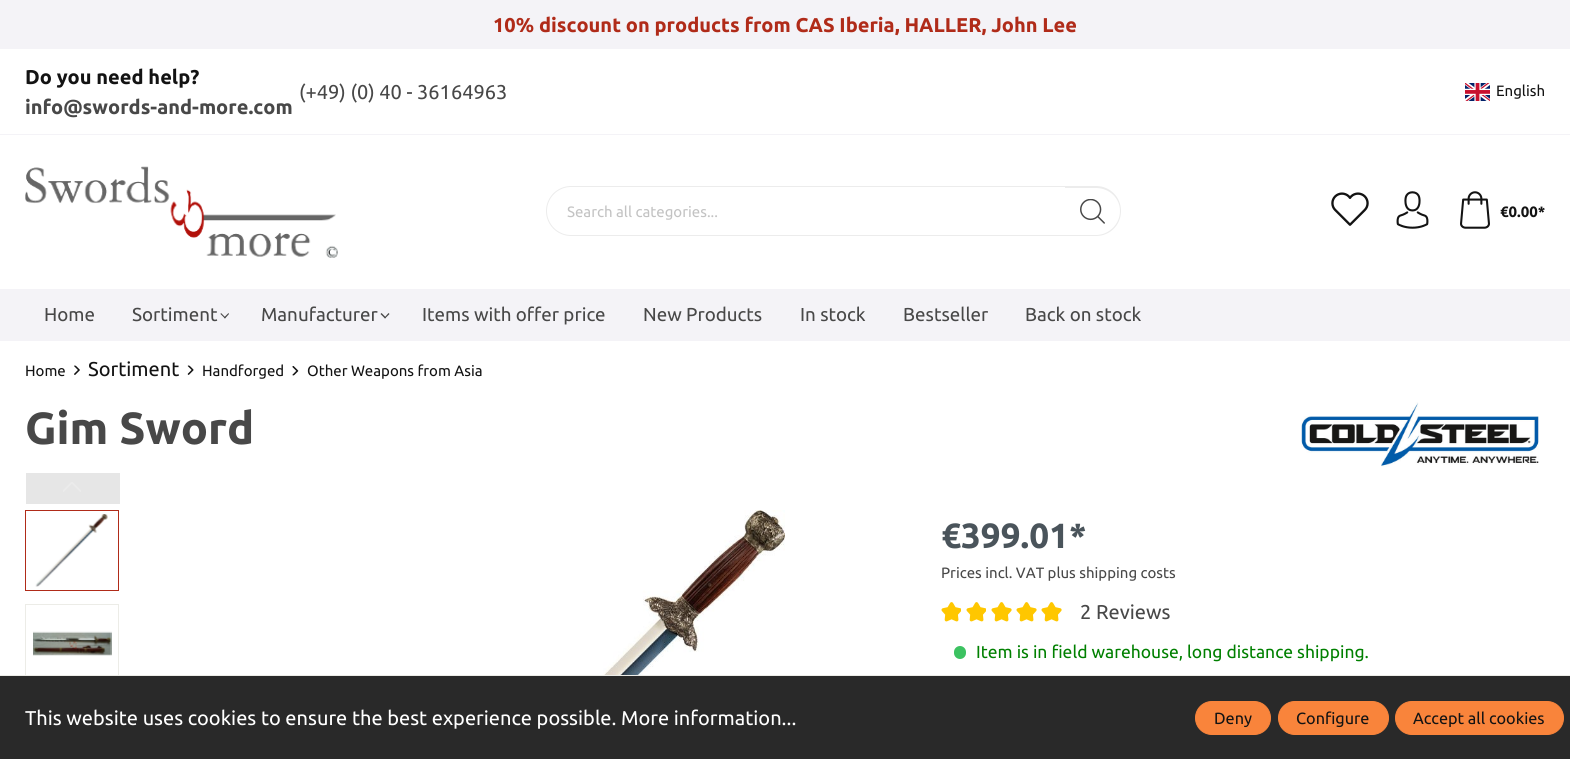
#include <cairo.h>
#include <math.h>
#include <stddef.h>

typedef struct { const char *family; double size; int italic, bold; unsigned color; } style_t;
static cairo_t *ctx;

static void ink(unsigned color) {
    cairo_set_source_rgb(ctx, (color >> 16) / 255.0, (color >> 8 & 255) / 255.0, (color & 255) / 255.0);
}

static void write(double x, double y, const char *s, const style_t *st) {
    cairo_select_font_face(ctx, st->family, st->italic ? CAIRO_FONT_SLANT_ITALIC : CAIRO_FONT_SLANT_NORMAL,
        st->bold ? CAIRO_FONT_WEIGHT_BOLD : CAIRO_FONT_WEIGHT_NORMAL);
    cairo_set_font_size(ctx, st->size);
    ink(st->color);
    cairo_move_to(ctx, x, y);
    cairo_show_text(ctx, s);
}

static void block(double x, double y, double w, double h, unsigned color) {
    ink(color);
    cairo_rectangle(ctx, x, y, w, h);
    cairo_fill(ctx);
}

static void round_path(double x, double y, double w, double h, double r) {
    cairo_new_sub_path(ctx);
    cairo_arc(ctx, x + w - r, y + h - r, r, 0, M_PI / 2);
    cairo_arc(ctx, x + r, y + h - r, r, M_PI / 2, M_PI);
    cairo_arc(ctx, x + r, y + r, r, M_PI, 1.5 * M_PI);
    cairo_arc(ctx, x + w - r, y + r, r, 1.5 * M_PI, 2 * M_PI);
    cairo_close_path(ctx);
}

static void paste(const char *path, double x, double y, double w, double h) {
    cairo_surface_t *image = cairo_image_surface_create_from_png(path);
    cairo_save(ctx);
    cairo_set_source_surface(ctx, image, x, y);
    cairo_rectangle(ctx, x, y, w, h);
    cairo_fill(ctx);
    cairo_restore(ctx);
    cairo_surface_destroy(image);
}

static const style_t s1 = {"Ubuntu", 20, 0, 1, 0xb02b19};
static const style_t s2 = {"Ubuntu", 20, 0, 1, 0x131313};
static const style_t s3 = {"Ubuntu", 20, 0, 1, 0x484848};
static const style_t s4 = {"Ubuntu", 20, 0, 0, 0x484848};
static const style_t s5 = {"Ubuntu", 15, 0, 0, 0x131313};
static const style_t s6 = {"Ubuntu", 15, 0, 0, 0xc3c3c3};
static const style_t s7 = {"Ubuntu", 15, 0, 1, 0x131313};
static const style_t s8 = {"Ubuntu", 18.75, 0, 0, 0x484848};
static const style_t s9 = {"Ubuntu", 20, 0, 0, 0x131313};
static const style_t s10 = {"Ubuntu", 45, 0, 1, 0x484848};
static const style_t s11 = {"Ubuntu", 35, 0, 1, 0x4a545b};
static const style_t s12 = {"Ubuntu", 15, 0, 0, 0x484848};
static const style_t s13 = {"Ubuntu", 17.5, 0, 0, 0x008000};
static const style_t s14 = {"Ubuntu", 20, 0, 0, 0xffffff};
static const style_t s15 = {"Ubuntu", 16.25, 0, 0, 0x131313};

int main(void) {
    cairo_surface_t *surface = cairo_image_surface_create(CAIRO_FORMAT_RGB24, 1570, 759);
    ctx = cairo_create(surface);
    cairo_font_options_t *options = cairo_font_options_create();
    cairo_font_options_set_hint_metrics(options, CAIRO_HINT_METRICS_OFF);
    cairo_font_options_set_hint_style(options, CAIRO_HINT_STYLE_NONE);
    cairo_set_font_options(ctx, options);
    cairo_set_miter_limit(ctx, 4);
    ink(0xffffff);
    cairo_paint(ctx);
    block(0, 0, 1570, 49, 0xf4f3f7);
    write(493, 32, "10% discount on products from CAS Iberia, HALLER, John Lee", &s1);
    block(0, 134, 1570, 1, 0xf4f3f7);
    write(25, 84, "Do you need help?", &s2);
    write(25, 114, "info@swords-and-more.com", &s3);
    write(299, 99, "(+49) (0) 40 - 36164963", &s4);
    paste("pic1.png", 1465, 83, 25, 18);
    write(1496, 96, "English", &s5);
    paste("pic2.png", 25, 166, 313, 92);
    cairo_new_path(ctx);
    cairo_move_to(ctx, 571, 186.5);
    cairo_line_to(ctx, 1065.5, 186.5);
    cairo_line_to(ctx, 1065.5, 235.5);
    cairo_line_to(ctx, 571, 235.5);
    cairo_curve_to(ctx, 557.5, 235.5, 546.5, 224.5, 546.5, 211);
    cairo_curve_to(ctx, 546.5, 197.5, 557.5, 186.5, 571, 186.5);
    cairo_close_path(ctx);
    ink(0xececec);
    cairo_set_line_width(ctx, 1);
    cairo_stroke(ctx);
    write(567, 217, "Search all categories...", &s6);
    ink(0xffffff);
    cairo_new_path(ctx);
    cairo_move_to(ctx, 1065, 186);
    cairo_line_to(ctx, 1096, 186);
    cairo_curve_to(ctx, 1110, 186, 1121, 197, 1121, 211);
    cairo_curve_to(ctx, 1121, 225, 1110, 236, 1096, 236);
    cairo_line_to(ctx, 1065, 236);
    cairo_close_path(ctx);
    cairo_fill(ctx);
    ink(0xececec);
    cairo_set_fill_rule(ctx, CAIRO_FILL_RULE_EVEN_ODD);
    cairo_new_path(ctx);
    cairo_move_to(ctx, 1065, 186);
    cairo_line_to(ctx, 1096, 186);
    cairo_curve_to(ctx, 1110, 186, 1121, 197, 1121, 211);
    cairo_curve_to(ctx, 1121, 225, 1110, 236, 1096, 236);
    cairo_line_to(ctx, 1065, 236);
    cairo_close_path(ctx);
    cairo_move_to(ctx, 1065, 188);
    cairo_line_to(ctx, 1096, 188);
    cairo_curve_to(ctx, 1109, 188, 1120, 198, 1120, 211);
    cairo_curve_to(ctx, 1120, 224, 1109, 235, 1096, 235);
    cairo_line_to(ctx, 1065, 235);
    cairo_close_path(ctx);
    cairo_fill(ctx);
    paste("pic3.png", 1080, 199, 25, 25);
    paste("pic4.png", 1331, 192, 38, 34);
    paste("pic5.png", 1396, 191, 33, 38);
    paste("pic6.png", 1460, 191, 30, 38);
    write(1500, 217, "€0.00*", &s7);
    block(0, 289, 1570, 52, 0xf4f3f7);
    write(44, 321, "Home", &s8);
    write(132, 321, "Sortiment", &s8);
    cairo_set_fill_rule(ctx, CAIRO_FILL_RULE_WINDING);
    cairo_new_path(ctx);
    cairo_move_to(ctx, 228.5, 313);
    cairo_line_to(ctx, 229, 314);
    cairo_line_to(ctx, 225, 318.5);
    cairo_line_to(ctx, 224, 317.5);
    cairo_close_path(ctx);
    cairo_fill(ctx);
    cairo_new_path(ctx);
    cairo_move_to(ctx, 221, 313);
    cairo_line_to(ctx, 225.5, 317.5);
    cairo_line_to(ctx, 225, 318.5);
    cairo_line_to(ctx, 220.5, 314);
    cairo_close_path(ctx);
    cairo_fill(ctx);
    write(261, 321, "Manufacturer", &s8);
    cairo_new_path(ctx);
    cairo_move_to(ctx, 388.5, 313);
    cairo_line_to(ctx, 389.5, 314);
    cairo_line_to(ctx, 385, 318.5);
    cairo_line_to(ctx, 384.5, 317.5);
    cairo_close_path(ctx);
    cairo_fill(ctx);
    cairo_new_path(ctx);
    cairo_move_to(ctx, 381.5, 313);
    cairo_line_to(ctx, 386, 317.5);
    cairo_line_to(ctx, 385, 318.5);
    cairo_line_to(ctx, 380.5, 314);
    cairo_close_path(ctx);
    cairo_fill(ctx);
    write(422, 321, "Items with offer price", &s8);
    write(643, 321, "New Products", &s8);
    write(800, 321, "In stock", &s8);
    write(903, 321, "Bestseller", &s8);
    write(1025, 321, "Back on stock", &s8);
    write(25, 376, "Home", &s5);
    paste("pic7.png", 74, 365, 6, 10);
    write(88, 376, "Sortiment", &s9);
    paste("pic8.png", 187, 365, 7, 10);
    write(202, 376, "Handforged", &s5);
    paste("pic9.png", 292, 366, 7, 10);
    write(307, 376, "Other Weapons from Asia", &s5);
    write(25, 444, "Gim Sword", &s10);
    paste("pic10.png", 1301, 402, 238, 65);
    block(26, 473, 94, 31, 0xe6e6e6);
    paste("pic11.png", 63, 482, 18, 10);
    cairo_rectangle(ctx, 25.5, 510.5, 93, 80);
    ink(0xb02b19);
    cairo_stroke(ctx);
    paste("pic12.png", 35, 514, 73, 73);
    cairo_rectangle(ctx, 25.5, 604.5, 93, 80);
    ink(0xecece7);
    cairo_stroke(ctx);
    paste("pic13.png", 33, 631, 79, 25);
    paste("pic14.png", 518, 510, 267, 165);
    write(941, 548, "€399.01*", &s11);
    write(941, 578, "Prices incl. VAT plus shipping costs", &s12);
    paste("pic15.png", 941, 602, 20, 20);
    paste("pic15.png", 966, 602, 20, 20);
    paste("pic16.png", 991, 602, 21, 20);
    paste("pic16.png", 1016, 602, 21, 20);
    paste("pic16.png", 1041, 602, 21, 20);
    write(1080, 619, "2 Reviews", &s4);
    ink(0x3cc261);
    round_path(954, 646, 12, 13, 6);
    cairo_fill(ctx);
    write(976, 658, "Item is in field warehouse, long distance shipping.", &s13);
    block(0, 676, 1570, 83, 0x292929);
    block(0, 675, 1570, 1, 0xecece7);
    write(25, 725, "This website uses cookies to ensure the best experience possible. More information...", &s14);
    ink(0xf9843b);
    round_path(1195.5, 701.5, 75, 33, 16.5);
    cairo_fill_preserve(ctx);
    cairo_stroke(ctx);
    write(1214, 724, "Deny", &s15);
    ink(0xf9843b);
    round_path(1278.5, 701.5, 110, 33, 16.5);
    cairo_fill_preserve(ctx);
    cairo_stroke(ctx);
    write(1296, 724, "Configure", &s15);
    ink(0xf9843b);
    round_path(1395.5, 701.5, 168, 33, 16.5);
    cairo_fill_preserve(ctx);
    cairo_stroke(ctx);
    write(1413, 724, "Accept all cookies", &s15);
    cairo_surface_write_to_png(surface, "screenshot.png");
    cairo_font_options_destroy(options);
    cairo_destroy(ctx);
    cairo_surface_destroy(surface);
    return 0;
}
